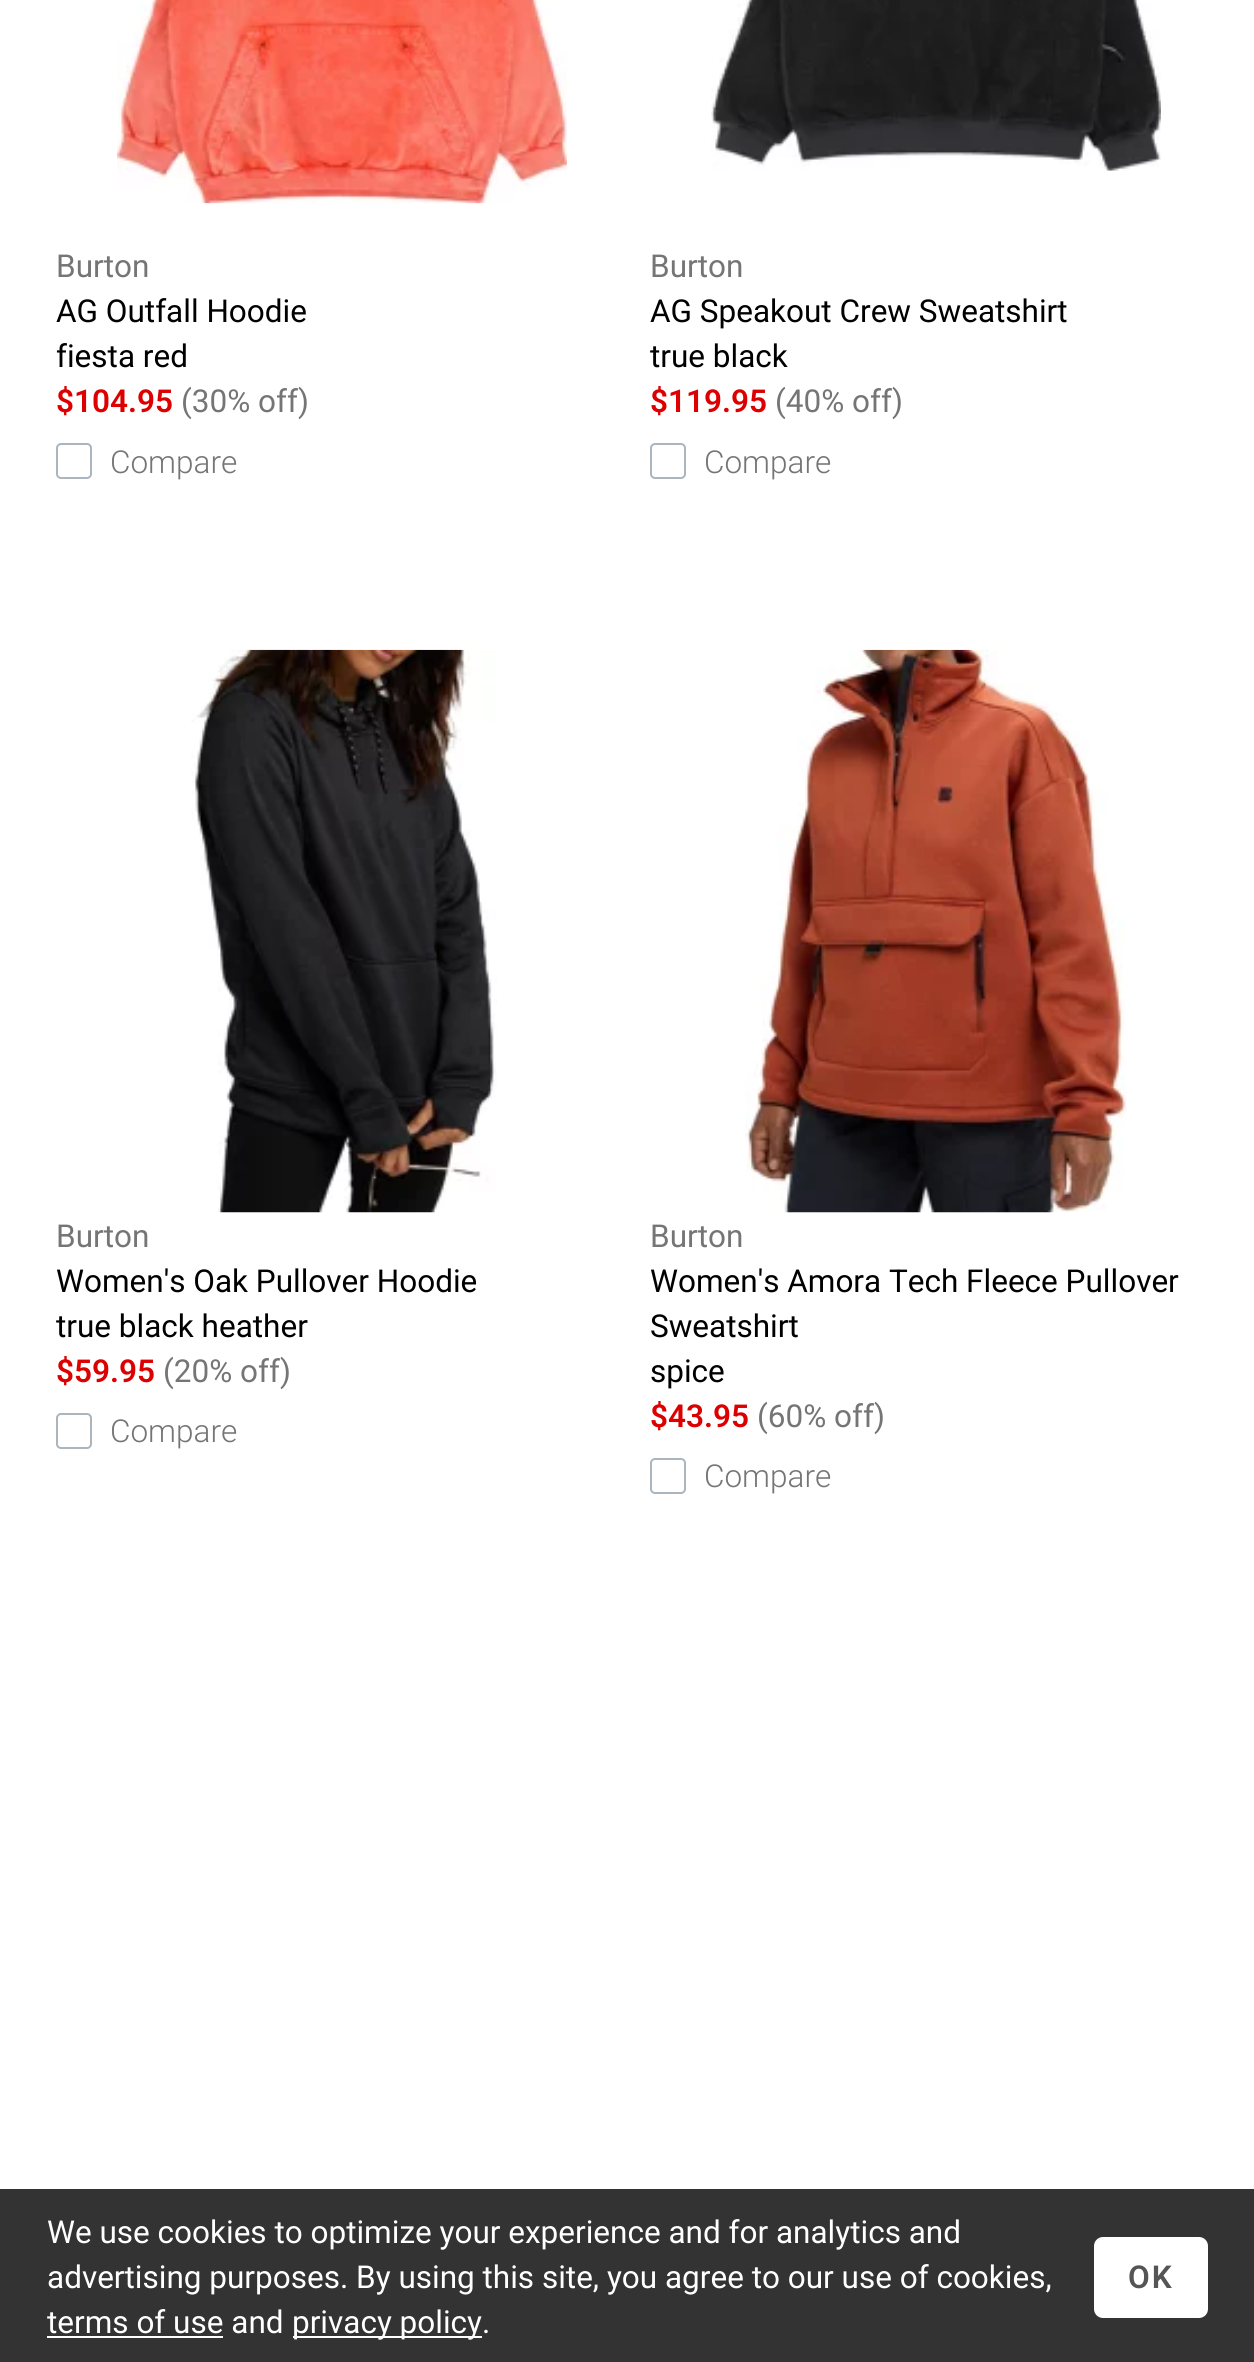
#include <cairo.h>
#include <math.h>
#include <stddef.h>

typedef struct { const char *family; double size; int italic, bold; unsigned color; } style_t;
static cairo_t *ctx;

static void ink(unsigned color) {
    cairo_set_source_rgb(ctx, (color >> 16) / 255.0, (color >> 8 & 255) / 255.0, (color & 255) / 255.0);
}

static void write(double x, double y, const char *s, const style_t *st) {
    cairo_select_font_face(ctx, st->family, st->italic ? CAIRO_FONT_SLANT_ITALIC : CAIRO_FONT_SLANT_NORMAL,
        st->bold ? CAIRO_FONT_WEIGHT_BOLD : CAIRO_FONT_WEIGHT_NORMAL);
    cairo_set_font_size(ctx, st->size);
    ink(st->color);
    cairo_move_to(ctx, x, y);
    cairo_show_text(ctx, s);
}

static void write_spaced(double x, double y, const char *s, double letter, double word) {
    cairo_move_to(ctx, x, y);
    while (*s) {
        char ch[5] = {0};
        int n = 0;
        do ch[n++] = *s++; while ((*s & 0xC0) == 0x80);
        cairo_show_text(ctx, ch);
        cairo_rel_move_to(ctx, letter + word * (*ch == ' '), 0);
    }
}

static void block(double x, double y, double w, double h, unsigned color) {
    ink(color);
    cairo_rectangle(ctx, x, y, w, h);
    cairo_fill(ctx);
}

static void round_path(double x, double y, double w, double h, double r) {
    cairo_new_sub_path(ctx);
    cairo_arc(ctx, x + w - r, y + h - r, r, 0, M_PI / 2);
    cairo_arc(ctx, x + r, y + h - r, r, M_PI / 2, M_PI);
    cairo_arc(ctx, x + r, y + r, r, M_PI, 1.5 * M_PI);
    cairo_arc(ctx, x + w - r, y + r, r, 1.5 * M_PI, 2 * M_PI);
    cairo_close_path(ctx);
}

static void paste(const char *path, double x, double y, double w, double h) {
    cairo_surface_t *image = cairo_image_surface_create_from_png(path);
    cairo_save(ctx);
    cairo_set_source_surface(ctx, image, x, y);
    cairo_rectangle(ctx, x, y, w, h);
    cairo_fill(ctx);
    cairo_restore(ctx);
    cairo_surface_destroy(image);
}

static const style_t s1 = {"Roboto", 31.5, 0, 0, 0x757575};
static const style_t s2 = {"Roboto", 31.5, 0, 0, 0x000000};
static const style_t s3 = {"Roboto SemiBold", 31.5, 0, 0, 0xdd0000};
static const style_t s4 = {"Roboto Light", 31.5, 0, 0, 0x757575};
static const style_t s5 = {"Roboto", 31.5, 0, 0, 0xffffff};

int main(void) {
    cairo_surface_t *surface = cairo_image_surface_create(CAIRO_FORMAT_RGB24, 1254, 2362);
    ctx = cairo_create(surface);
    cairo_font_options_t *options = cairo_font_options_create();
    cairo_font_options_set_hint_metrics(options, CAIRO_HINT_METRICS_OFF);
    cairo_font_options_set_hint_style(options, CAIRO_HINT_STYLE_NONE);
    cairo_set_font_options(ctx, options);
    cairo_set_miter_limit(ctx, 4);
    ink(0xffffff);
    cairo_paint(ctx);
    paste("pic1.png", 117, 0, 450, 204);
    write(56, 277, "Burton", &s1);
    write(56, 322, "AG Outfall Hoodie", &s2);
    write(56, 367, "fiesta red", &s2);
    write(56, 412, "$104.95", &s3);
    write(181, 412, "(30% off)", &s1);
    round_path(57, 444, 34, 34, 4);
    ink(0xabb5be);
    cairo_stroke(ctx);
    write(110, 473, "Compare", &s4);
    paste("pic2.png", 711, 0, 450, 171);
    write(650, 277, "Burton", &s1);
    write(650, 322, "AG Speakout Crew Sweatshirt", &s2);
    write(650, 367, "true black", &s2);
    write(650, 412, "$119.95", &s3);
    write(775, 412, "(40% off)", &s1);
    round_path(651, 444, 34, 34, 4);
    ink(0xabb5be);
    cairo_stroke(ctx);
    write(704, 473, "Compare", &s4);
    paste("pic3.png", 191, 649, 306, 564);
    write(56, 1247, "Burton", &s1);
    write(56, 1292, "Women's Oak Pullover Hoodie", &s2);
    write(56, 1337, "true black heather", &s2);
    write(56, 1382, "$59.95", &s3);
    write(163, 1382, "(20% off)", &s1);
    round_path(57, 1414, 34, 34, 4);
    ink(0xabb5be);
    cairo_stroke(ctx);
    write(110, 1442, "Compare", &s4);
    paste("pic4.png", 745, 649, 382, 564);
    write(650, 1247, "Burton", &s1);
    write(650, 1292, "Women's Amora Tech Fleece Pullover", &s2);
    write(650, 1337, "Sweatshirt", &s2);
    write(650, 1382, "spice", &s2);
    write(650, 1427, "$43.95", &s3);
    write(757, 1427, "(60% off)", &s1);
    round_path(651, 1459, 34, 34, 4);
    ink(0xabb5be);
    cairo_stroke(ctx);
    write(704, 1487, "Compare", &s4);
    block(0, 2189, 1254, 173, 0x333333);
    write(47, 2243, "We use cookies to optimize your experience and for analytics and", &s5);
    write(47, 2288, "advertising purposes. By using this site, you agree to our use of cookies,", &s5);
    write(47, 2333, "terms of use and", &s5);
    block(47, 2336, 176, 2, 0xffffff);
    block(293, 2336, 189, 2, 0xffffff);
    write(292, 2333, "privacy policy.", &s5);
    round_path(1095, 2238, 112, 79, 8);
    cairo_fill_preserve(ctx);
    cairo_stroke(ctx);
    cairo_select_font_face(ctx, "Roboto SemiBold", CAIRO_FONT_SLANT_NORMAL, CAIRO_FONT_WEIGHT_NORMAL);
    ink(0x555555);
    write_spaced(1128, 2288, "OK", 2, 0);
    cairo_surface_write_to_png(surface, "screenshot.png");
    cairo_font_options_destroy(options);
    cairo_destroy(ctx);
    cairo_surface_destroy(surface);
    return 0;
}
